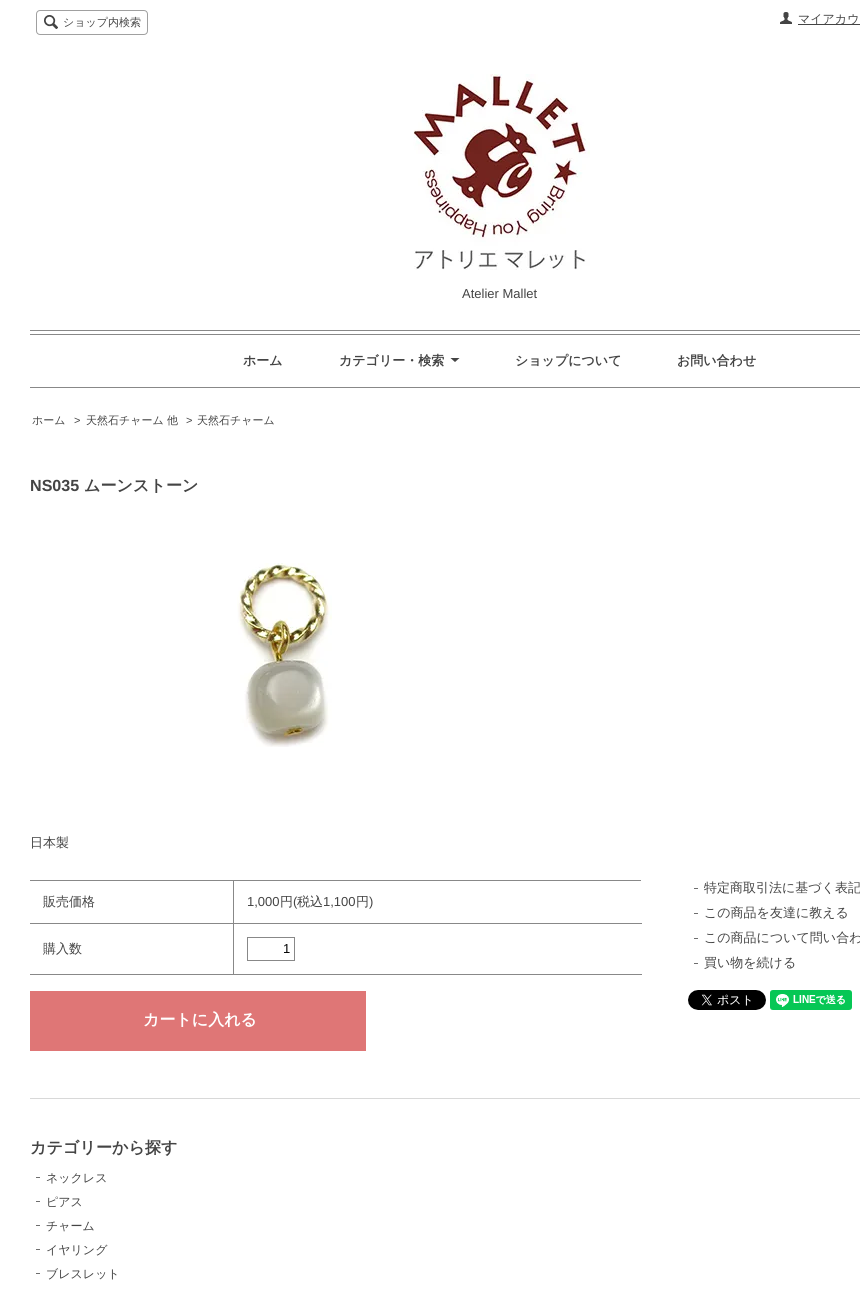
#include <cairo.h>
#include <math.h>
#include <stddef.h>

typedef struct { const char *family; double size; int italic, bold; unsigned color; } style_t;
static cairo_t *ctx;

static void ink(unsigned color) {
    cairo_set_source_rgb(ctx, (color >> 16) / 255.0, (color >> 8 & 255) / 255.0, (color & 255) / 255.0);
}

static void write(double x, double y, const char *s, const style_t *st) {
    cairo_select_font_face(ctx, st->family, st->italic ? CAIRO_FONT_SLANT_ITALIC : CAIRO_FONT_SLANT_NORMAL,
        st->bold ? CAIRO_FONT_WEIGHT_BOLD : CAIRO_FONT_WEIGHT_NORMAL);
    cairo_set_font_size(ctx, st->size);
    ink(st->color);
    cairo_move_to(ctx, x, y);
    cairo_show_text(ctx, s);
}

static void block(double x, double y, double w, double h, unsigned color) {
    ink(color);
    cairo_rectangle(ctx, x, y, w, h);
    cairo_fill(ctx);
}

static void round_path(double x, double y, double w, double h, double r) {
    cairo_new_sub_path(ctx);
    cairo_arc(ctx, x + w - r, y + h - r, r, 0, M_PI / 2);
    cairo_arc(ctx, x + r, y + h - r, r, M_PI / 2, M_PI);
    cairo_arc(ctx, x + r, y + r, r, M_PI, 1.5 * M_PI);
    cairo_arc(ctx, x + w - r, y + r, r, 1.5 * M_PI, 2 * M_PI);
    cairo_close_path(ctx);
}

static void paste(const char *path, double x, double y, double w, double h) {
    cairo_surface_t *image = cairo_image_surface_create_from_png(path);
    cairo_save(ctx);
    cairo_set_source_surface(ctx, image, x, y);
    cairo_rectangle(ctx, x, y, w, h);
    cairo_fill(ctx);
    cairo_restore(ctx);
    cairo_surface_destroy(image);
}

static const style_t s1 = {"WenQuanYi Zen Hei Medium", 11, 0, 0, 0x444444};
static const style_t s2 = {"WenQuanYi Zen Hei Medium", 12, 0, 0, 0x444444};
static const style_t s3 = {"Liberation Sans", 13, 0, 0, 0x444444};
static const style_t s4 = {"WenQuanYi Zen Hei", 13, 0, 1, 0x444444};
static const style_t s5 = {"Liberation Sans", 11, 0, 0, 0x444444};
static const style_t s6 = {"Liberation Sans", 16.1, 0, 1, 0x444444};
static const style_t s7 = {"WenQuanYi Zen Hei", 16.1, 0, 1, 0x444444};
static const style_t s8 = {"WenQuanYi Zen Hei Medium", 13, 0, 0, 0x444444};
static const style_t s9 = {"Liberation Sans", 13, 0, 0, 0x000000};
static const style_t s10 = {"WenQuanYi Zen Hei", 16, 0, 1, 0xffffff};

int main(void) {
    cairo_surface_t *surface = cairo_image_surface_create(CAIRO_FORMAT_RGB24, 860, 1296);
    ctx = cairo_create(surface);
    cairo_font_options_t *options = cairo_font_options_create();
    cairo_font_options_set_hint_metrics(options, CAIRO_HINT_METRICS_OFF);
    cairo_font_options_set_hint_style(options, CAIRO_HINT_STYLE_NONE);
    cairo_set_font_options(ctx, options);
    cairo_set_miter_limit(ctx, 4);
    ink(0xffffff);
    cairo_paint(ctx);
    round_path(36.5, 10.5, 111, 24, 3.5);
    ink(0xa0a0a0);
    cairo_set_line_width(ctx, 1);
    cairo_stroke(ctx);
    paste("pic1.png", 44, 15, 14, 14);
    write(63, 26, "ショップ内検索", &s1);
    paste("pic2.png", 780, 12, 12, 12);
    block(798, 24, 62, 1, 0x444444);
    write(798, 23, "マイアカウ", &s2);
    block(30, 330, 830, 1, 0x888888);
    paste("pic3.png", 413, 74, 177, 196);
    write(462, 298, "Atelier Mallet", &s3);
    block(30, 334, 830, 1, 0x888888);
    block(30, 387, 830, 1, 0x888888);
    write(243, 365, "ホーム", &s4);
    write(339, 365, "カテゴリー・検索", &s4);
    paste("pic4.png", 450, 358, 10, 4);
    write(515, 365, "ショップについて", &s4);
    write(677, 365, "お問い合わせ", &s4);
    write(32, 424, "ホーム", &s1);
    write(74, 424, ">", &s5);
    write(86, 424, "天然石チャーム 他", &s1);
    write(186, 424, ">", &s5);
    write(197, 424, "天然石チャーム", &s1);
    write(30, 491, "NS035", &s6);
    write(84, 491, "ムーンストーン", &s7);
    paste("pic5.png", 237, 563, 95, 184);
    write(30, 847, "日本製", &s8);
    block(30, 880, 611, 1, 0x888888);
    block(233, 974, 409, 1, 0x888888);
    block(233, 923, 1, 52, 0x888888);
    block(233, 923, 409, 1, 0x888888);
    block(233, 880, 1, 44, 0x888888);
    block(30, 923, 204, 1, 0x888888);
    write(43, 906, "販売価格", &s8);
    write(247, 906, "1,000", &s3);
    write(280, 906, "円", &s8);
    write(293, 906, "(", &s3);
    write(297, 906, "税込", &s8);
    write(323, 906, "1,100", &s3);
    write(356, 906, "円", &s8);
    write(369, 906, ")", &s3);
    block(30, 974, 204, 1, 0x888888);
    write(43, 953, "購入数", &s8);
    cairo_rectangle(ctx, 247.5, 937.5, 47, 23);
    ink(0x888888);
    cairo_stroke(ctx);
    write(283, 953, "1", &s9);
    block(30, 991, 336, 60, 0xdf7676);
    write(143, 1025, "カートに入れる", &s10);
    block(694, 888, 4, 1, 0x6e6e6e);
    write(704, 892, "特定商取引法に基づく表記", &s8);
    block(694, 913, 4, 1, 0x6e6e6e);
    write(704, 917, "この商品を友達に教える", &s8);
    block(694, 938, 4, 1, 0x6e6e6e);
    write(704, 942, "この商品について問い合わ", &s8);
    block(694, 963, 4, 1, 0x6e6e6e);
    write(704, 967, "買い物を続ける", &s8);
    paste("pic6.png", 688, 990, 78, 20);
    paste("pic7.png", 770, 990, 82, 20);
    block(30, 1098, 830, 1, 0xd8d8d8);
    write(30, 1153, "カテゴリーから探す", &s7);
    block(36, 1177, 4, 1, 0x6e6e6e);
    write(46, 1182, "ネックレス", &s2);
    block(36, 1201, 4, 1, 0x6e6e6e);
    write(46, 1206, "ピアス", &s2);
    block(36, 1225, 4, 1, 0x6e6e6e);
    write(46, 1230, "チャーム", &s2);
    block(36, 1249, 4, 1, 0x6e6e6e);
    write(46, 1254, "イヤリング", &s2);
    block(36, 1273, 4, 1, 0x6e6e6e);
    write(46, 1278, "ブレスレット", &s2);
    cairo_surface_write_to_png(surface, "screenshot.png");
    cairo_font_options_destroy(options);
    cairo_destroy(ctx);
    cairo_surface_destroy(surface);
    return 0;
}
